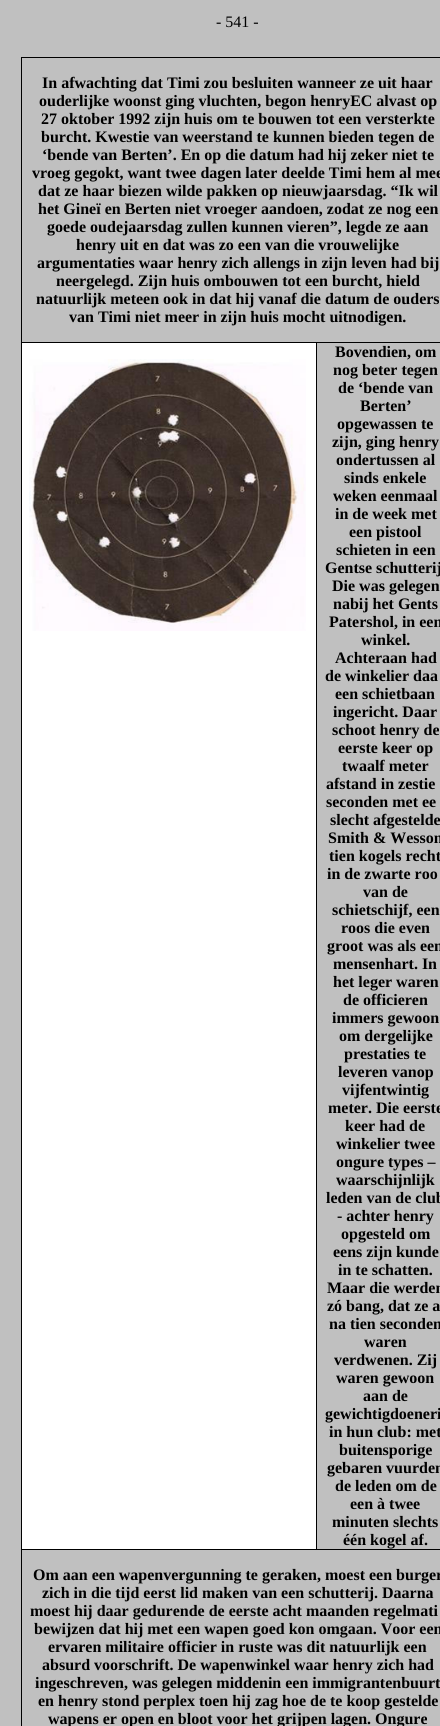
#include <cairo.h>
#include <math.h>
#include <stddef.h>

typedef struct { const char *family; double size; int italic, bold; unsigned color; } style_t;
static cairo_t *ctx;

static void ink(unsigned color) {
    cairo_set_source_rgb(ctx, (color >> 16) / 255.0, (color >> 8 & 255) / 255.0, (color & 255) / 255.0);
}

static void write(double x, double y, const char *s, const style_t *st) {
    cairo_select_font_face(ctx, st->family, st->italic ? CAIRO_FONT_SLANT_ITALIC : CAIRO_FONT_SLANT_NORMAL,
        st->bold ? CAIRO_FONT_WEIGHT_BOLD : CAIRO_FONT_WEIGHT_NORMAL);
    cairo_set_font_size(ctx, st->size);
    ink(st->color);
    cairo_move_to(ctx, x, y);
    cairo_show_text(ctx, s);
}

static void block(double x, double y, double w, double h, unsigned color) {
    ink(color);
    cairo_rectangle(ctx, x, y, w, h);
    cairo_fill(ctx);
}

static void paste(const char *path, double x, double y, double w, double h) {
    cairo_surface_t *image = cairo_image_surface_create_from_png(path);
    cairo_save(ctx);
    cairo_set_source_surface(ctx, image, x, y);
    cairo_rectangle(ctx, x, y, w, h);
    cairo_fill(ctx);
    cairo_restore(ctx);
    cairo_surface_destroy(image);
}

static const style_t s1 = {"Liberation Serif", 16, 0, 0, 0x000000};
static const style_t s2 = {"Liberation Serif", 16, 0, 1, 0x000000};

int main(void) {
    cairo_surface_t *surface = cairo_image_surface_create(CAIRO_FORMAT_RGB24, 440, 1726);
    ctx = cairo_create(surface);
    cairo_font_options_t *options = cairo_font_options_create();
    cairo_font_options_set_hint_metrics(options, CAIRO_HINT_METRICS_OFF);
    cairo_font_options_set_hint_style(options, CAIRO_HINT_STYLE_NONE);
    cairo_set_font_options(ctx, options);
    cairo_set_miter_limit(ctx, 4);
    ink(0xc0c0c0);
    cairo_paint(ctx);
    write(216, 27, "- 541 -", &s1);
    block(21, 57, 419, 1, 0x000000);
    block(316, 1549, 124, 1, 0x000000);
    block(316, 342, 1, 1208, 0x000000);
    block(21, 1549, 1, 177, 0x000000);
    block(21, 1549, 296, 1, 0x000000);
    block(21, 342, 1, 1208, 0x000000);
    block(21, 342, 419, 1, 0x000000);
    block(21, 57, 1, 286, 0x000000);
    write(42, 88, "In afwachting dat Timi zou besluiten wanneer ze uit haar", &s2);
    write(39, 106, "ouderlijke woonst ging vluchten, begon henryEC alvast op", &s2);
    write(41, 124, "27 oktober 1992 zijn huis om te bouwen tot een versterkte", &s2);
    write(41, 142, "burcht. Kwestie van weerstand te kunnen bieden tegen de", &s2);
    write(42, 160, "‘bende van Berten’. En op die datum had hij zeker niet te", &s2);
    write(32, 178, "vroeg gegokt, want twee dagen later deelde Timi hem al mee", &s2);
    write(38, 196, "dat ze haar biezen wilde pakken op nieuwjaarsdag. “Ik wil", &s2);
    write(38, 214, "het Gineï en Berten niet vroeger aandoen, zodat ze nog een", &s2);
    write(47, 232, "goede oudejaarsdag zullen kunnen vieren”, legde ze aan", &s2);
    write(76, 250, "henry uit en dat was zo een van die vrouwelijke", &s2);
    write(37, 268, "argumentaties waar henry zich allengs in zijn leven had bij", &s2);
    write(56, 286, "neergelegd. Zijn huis ombouwen tot een burcht, hield", &s2);
    write(36, 304, "natuurlijk meteen ook in dat hij vanaf die datum de ouders", &s2);
    write(69, 322, "van Timi niet meer in zijn huis mocht uitnodigen.", &s2);
    block(22, 343, 294, 1206, 0xffffff);
    paste("pic1.png", 29, 359, 277, 272);
    write(335, 357, "Bovendien, om", &s2);
    write(333, 375, "nog beter tegen", &s2);
    write(338, 393, "de ‘bende van", &s2);
    write(360, 411, "Berten’", &s2);
    write(337, 429, "opgewassen te", &s2);
    write(332, 447, "zijn, ging henry", &s2);
    write(336, 465, "ondertussen al", &s2);
    write(344, 483, "sinds enkele", &s2);
    write(333, 501, "weken eenmaal", &s2);
    write(335, 519, "in de week met", &s2);
    write(349, 537, "een pistool", &s2);
    write(336, 555, "schieten in een", &s2);
    write(325, 573, "Gentse schutterij", &s2);
    write(332, 591, "Die was gelegen", &s2);
    write(333, 609, "nabij het Gents", &s2);
    write(329, 627, "Patershol, in een", &s2);
    write(361, 645, "winkel.", &s2);
    write(335, 663, "Achteraan had", &s2);
    write(325, 681, "de winkelier daa", &s2);
    write(335, 699, "een schietbaan", &s2);
    write(333, 717, "ingericht. Daar", &s2);
    write(332, 735, "schoot henry de", &s2);
    write(338, 753, "eerste keer op", &s2);
    write(342, 771, "twaalf meter", &s2);
    write(326, 789, "afstand in zestie", &s2);
    write(326, 807, "seconden met ee", &s2);
    write(330, 825, "slecht afgestelde", &s2);
    write(328, 843, "Smith & Wesson", &s2);
    write(329, 861, "tien kogels recht", &s2);
    write(327, 879, "in de zwarte roo", &s2);
    write(363, 897, "van de", &s2);
    write(332, 915, "schietschijf, een", &s2);
    write(341, 933, "roos die even", &s2);
    write(327, 951, "groot was als een", &s2);
    write(333, 969, "mensenhart. In", &s2);
    write(333, 987, "het leger waren", &s2);
    write(343, 1005, "de officieren", &s2);
    write(332, 1023, "immers gewoon", &s2);
    write(339, 1041, "om dergelijke", &s2);
    write(344, 1059, "prestaties te", &s2);
    write(338, 1077, "leveren vanop", &s2);
    write(342, 1095, "vijfentwintig", &s2);
    write(328, 1113, "meter. Die eerste", &s2);
    write(345, 1131, "keer had de", &s2);
    write(336, 1149, "winkelier twee", &s2);
    write(336, 1167, "ongure types –", &s2);
    write(336, 1185, "waarschijnlijk", &s2);
    write(326, 1203, "leden van de club", &s2);
    write(337, 1221, "- achter henry", &s2);
    write(341, 1239, "opgesteld om", &s2);
    write(333, 1257, "eens zijn kunde", &s2);
    write(338, 1275, "in te schatten.", &s2);
    write(327, 1293, "Maar die werden", &s2);
    write(327, 1311, "zó bang, dat ze a", &s2);
    write(329, 1329, "na tien seconden", &s2);
    write(364, 1347, "waren", &s2);
    write(334, 1365, "verdwenen. Zij", &s2);
    write(336, 1383, "waren gewoon", &s2);
    write(363, 1401, "aan de", &s2);
    write(325, 1419, "gewichtigdoeneri", &s2);
    write(329, 1437, "in hun club: met", &s2);
    write(339, 1455, "buitensporige", &s2);
    write(327, 1473, "gebaren vuurden", &s2);
    write(335, 1491, "de leden om de", &s2);
    write(350, 1509, "een à twee", &s2);
    write(332, 1527, "minuten slechts", &s2);
    write(343, 1545, "één kogel af.", &s2);
    write(33, 1580, "Om aan een wapenvergunning te geraken, moest een burger", &s2);
    write(42, 1598, "zich in die tijd eerst lid maken van een schutterij. Daarna", &s2);
    write(30, 1616, "moest hij daar gedurende de eerste acht maanden regelmati", &s2);
    write(34, 1634, "bewijzen dat hij met een wapen goed kon omgaan. Voor een", &s2);
    write(48, 1652, "ervaren militaire officier in ruste was dit natuurlijk een", &s2);
    write(42, 1670, "absurd voorschrift. De wapenwinkel waar henry zich had", &s2);
    write(35, 1688, "ingeschreven, was gelegen middenin een immigrantenbuurt", &s2);
    write(38, 1706, "en henry stond perplex toen hij zag hoe de te koop gestelde", &s2);
    write(48, 1724, "wapens er open en bloot voor het grijpen lagen. Ongure", &s2);
    cairo_surface_write_to_png(surface, "screenshot.png");
    cairo_font_options_destroy(options);
    cairo_destroy(ctx);
    cairo_surface_destroy(surface);
    return 0;
}
